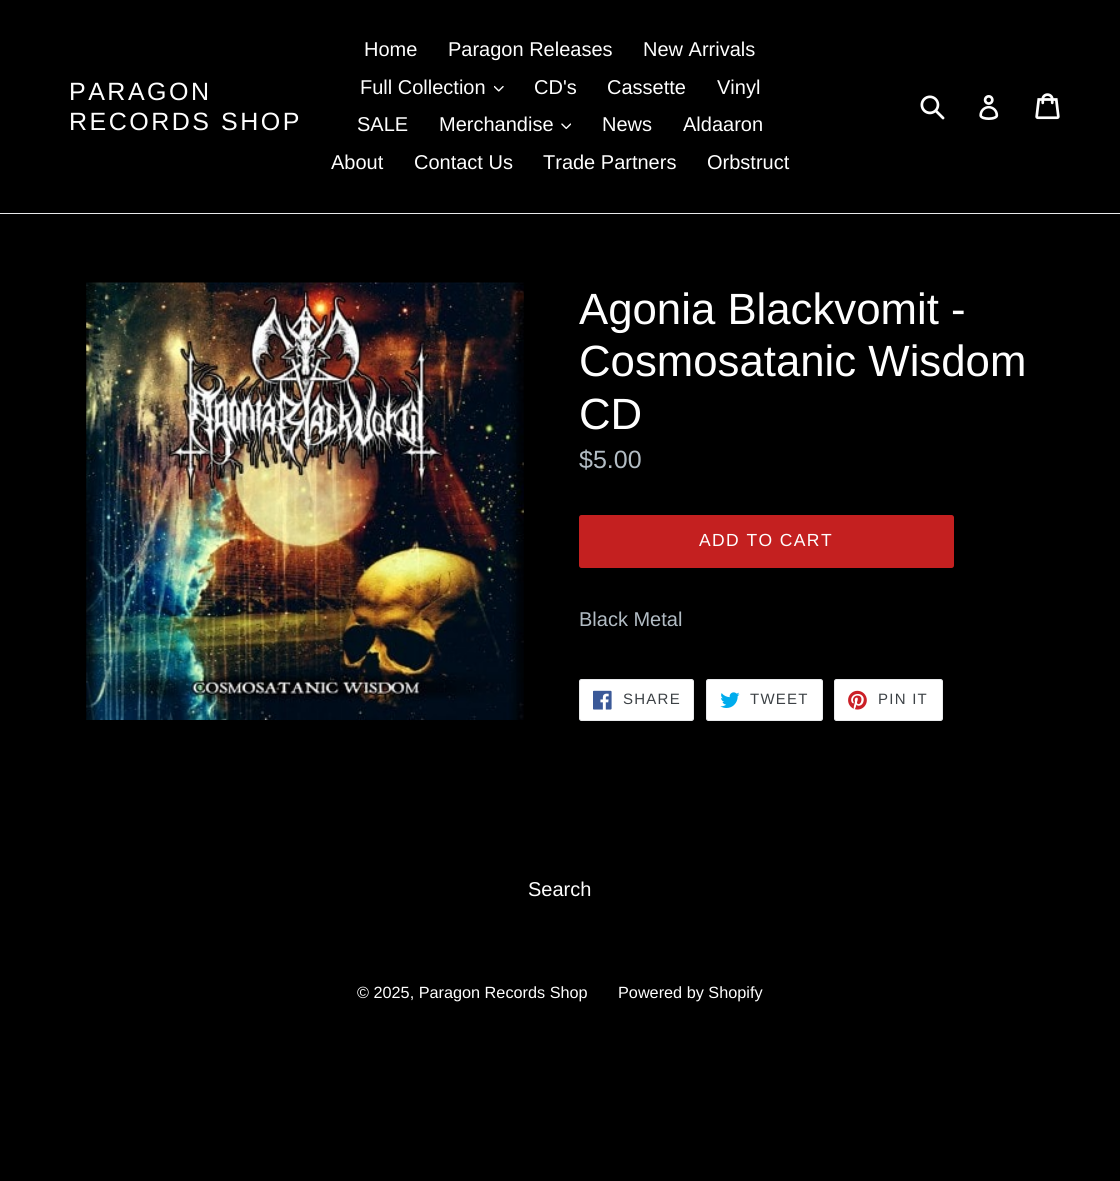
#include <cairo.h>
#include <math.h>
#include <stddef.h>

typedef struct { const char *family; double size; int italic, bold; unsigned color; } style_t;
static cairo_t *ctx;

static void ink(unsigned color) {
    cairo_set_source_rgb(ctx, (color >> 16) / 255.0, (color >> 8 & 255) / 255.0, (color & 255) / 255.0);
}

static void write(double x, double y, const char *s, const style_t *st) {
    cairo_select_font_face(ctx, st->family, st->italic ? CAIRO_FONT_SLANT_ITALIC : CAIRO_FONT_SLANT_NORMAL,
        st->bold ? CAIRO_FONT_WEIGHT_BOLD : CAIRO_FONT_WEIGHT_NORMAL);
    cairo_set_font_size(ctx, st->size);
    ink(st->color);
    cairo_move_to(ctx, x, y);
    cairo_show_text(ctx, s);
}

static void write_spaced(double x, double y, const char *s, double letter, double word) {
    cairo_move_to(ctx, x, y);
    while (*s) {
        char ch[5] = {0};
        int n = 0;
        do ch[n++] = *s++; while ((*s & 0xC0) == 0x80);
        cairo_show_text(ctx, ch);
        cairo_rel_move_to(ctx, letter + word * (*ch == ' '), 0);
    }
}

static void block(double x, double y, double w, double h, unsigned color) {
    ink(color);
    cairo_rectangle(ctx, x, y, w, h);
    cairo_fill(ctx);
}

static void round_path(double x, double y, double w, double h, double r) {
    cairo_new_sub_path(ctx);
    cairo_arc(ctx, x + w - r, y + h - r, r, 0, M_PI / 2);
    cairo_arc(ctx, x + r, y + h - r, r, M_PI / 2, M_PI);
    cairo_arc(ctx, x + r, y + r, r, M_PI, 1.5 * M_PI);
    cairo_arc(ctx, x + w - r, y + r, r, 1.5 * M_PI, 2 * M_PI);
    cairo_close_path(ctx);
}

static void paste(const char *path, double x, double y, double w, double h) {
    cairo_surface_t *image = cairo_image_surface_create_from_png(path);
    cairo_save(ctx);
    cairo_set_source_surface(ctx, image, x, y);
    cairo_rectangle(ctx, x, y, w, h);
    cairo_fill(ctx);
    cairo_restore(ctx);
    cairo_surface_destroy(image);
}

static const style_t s1 = {"Liberation Sans", 20, 0, 0, 0xfefefe};
static const style_t s2 = {"Liberation Sans", 43.75, 0, 0, 0xfefefe};
static const style_t s3 = {"Liberation Sans", 25, 0, 0, 0xb2bcc4};
static const style_t s4 = {"Liberation Sans", 20, 0, 0, 0xb2bcc4};
static const style_t s5 = {"Liberation Sans", 16.25, 0, 0, 0xfefefe};

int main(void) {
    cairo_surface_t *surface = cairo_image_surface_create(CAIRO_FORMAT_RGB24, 1120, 1181);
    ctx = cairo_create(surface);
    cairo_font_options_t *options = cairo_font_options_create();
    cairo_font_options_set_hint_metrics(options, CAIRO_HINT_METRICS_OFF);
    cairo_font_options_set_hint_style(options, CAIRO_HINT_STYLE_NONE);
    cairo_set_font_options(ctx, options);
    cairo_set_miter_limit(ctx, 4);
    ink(0x000000);
    cairo_paint(ctx);
    block(0, 213, 1120, 1, 0xe8e9eb);
    cairo_select_font_face(ctx, "Liberation Sans", CAIRO_FONT_SLANT_NORMAL, CAIRO_FONT_WEIGHT_NORMAL);
    cairo_set_font_size(ctx, 25);
    ink(0xfefefe);
    write_spaced(69, 100, "PARAGON", 2.5, 0);
    write_spaced(69, 130, "RECORDS SHOP", 2.5, 0);
    write(364, 56, "Home", &s1);
    write(448, 56, "Paragon Releases", &s1);
    write(643, 56, "New Arrivals", &s1);
    write(360, 94, "Full Collection", &s1);
    paste("pic1.png", 494, 85, 10, 7);
    write(534, 94, "CD's", &s1);
    write(607, 94, "Cassette", &s1);
    write(717, 94, "Vinyl", &s1);
    write(357, 131, "SALE", &s1);
    write(439, 131, "Merchandise", &s1);
    paste("pic2.png", 561, 123, 10, 7);
    write(602, 131, "News", &s1);
    write(683, 131, "Aldaaron", &s1);
    write(331, 169, "About", &s1);
    write(414, 169, "Contact Us", &s1);
    write(543, 169, "Trade Partners", &s1);
    write(707, 169, "Orbstruct", &s1);
    paste("pic3.png", 920, 95, 25, 25);
    paste("pic4.png", 979, 95, 20, 25);
    paste("pic5.png", 1035, 93, 25, 27);
    paste("pic6.png", 86, 282, 438, 438);
    write(579, 324, "Agonia Blackvomit -", &s2);
    write(579, 376, "Cosmosatanic Wisdom", &s2);
    write(579, 429, "CD", &s2);
    write(579, 468, "$5.00", &s3);
    ink(0xc42020);
    round_path(579, 515, 375, 53, 2.5);
    cairo_fill(ctx);
    cairo_set_font_size(ctx, 17.5);
    ink(0xfefefe);
    write_spaced(699, 546, "ADD TO CART", 1.4, 0);
    write(579, 626, "Black Metal", &s4);
    ink(0xffffff);
    round_path(579.5, 679.5, 114, 41, 2);
    cairo_fill_preserve(ctx);
    ink(0xe8e9eb);
    cairo_set_line_width(ctx, 1);
    cairo_stroke(ctx);
    paste("pic7.png", 593, 690, 19, 20);
    cairo_set_font_size(ctx, 15);
    ink(0x3d4246);
    write_spaced(623, 704, "SHARE", 1.25, 0);
    ink(0xffffff);
    round_path(706.5, 679.5, 116, 41, 2);
    cairo_fill_preserve(ctx);
    ink(0xe8e9eb);
    cairo_stroke(ctx);
    paste("pic8.png", 720, 692, 20, 16);
    ink(0x3d4246);
    write_spaced(750, 704, "TWEET", 1.25, 0);
    ink(0xffffff);
    round_path(834.5, 679.5, 108, 41, 2);
    cairo_fill_preserve(ctx);
    ink(0xe8e9eb);
    cairo_stroke(ctx);
    paste("pic9.png", 848, 690, 19, 20);
    ink(0x3d4246);
    write_spaced(878, 704, "PIN IT", 1.25, 0);
    write(528, 896, "Search", &s1);
    write(357, 998, "© 2025, Paragon Records Shop", &s5);
    write(618, 998, "Powered by Shopify", &s5);
    cairo_surface_write_to_png(surface, "screenshot.png");
    cairo_font_options_destroy(options);
    cairo_destroy(ctx);
    cairo_surface_destroy(surface);
    return 0;
}
